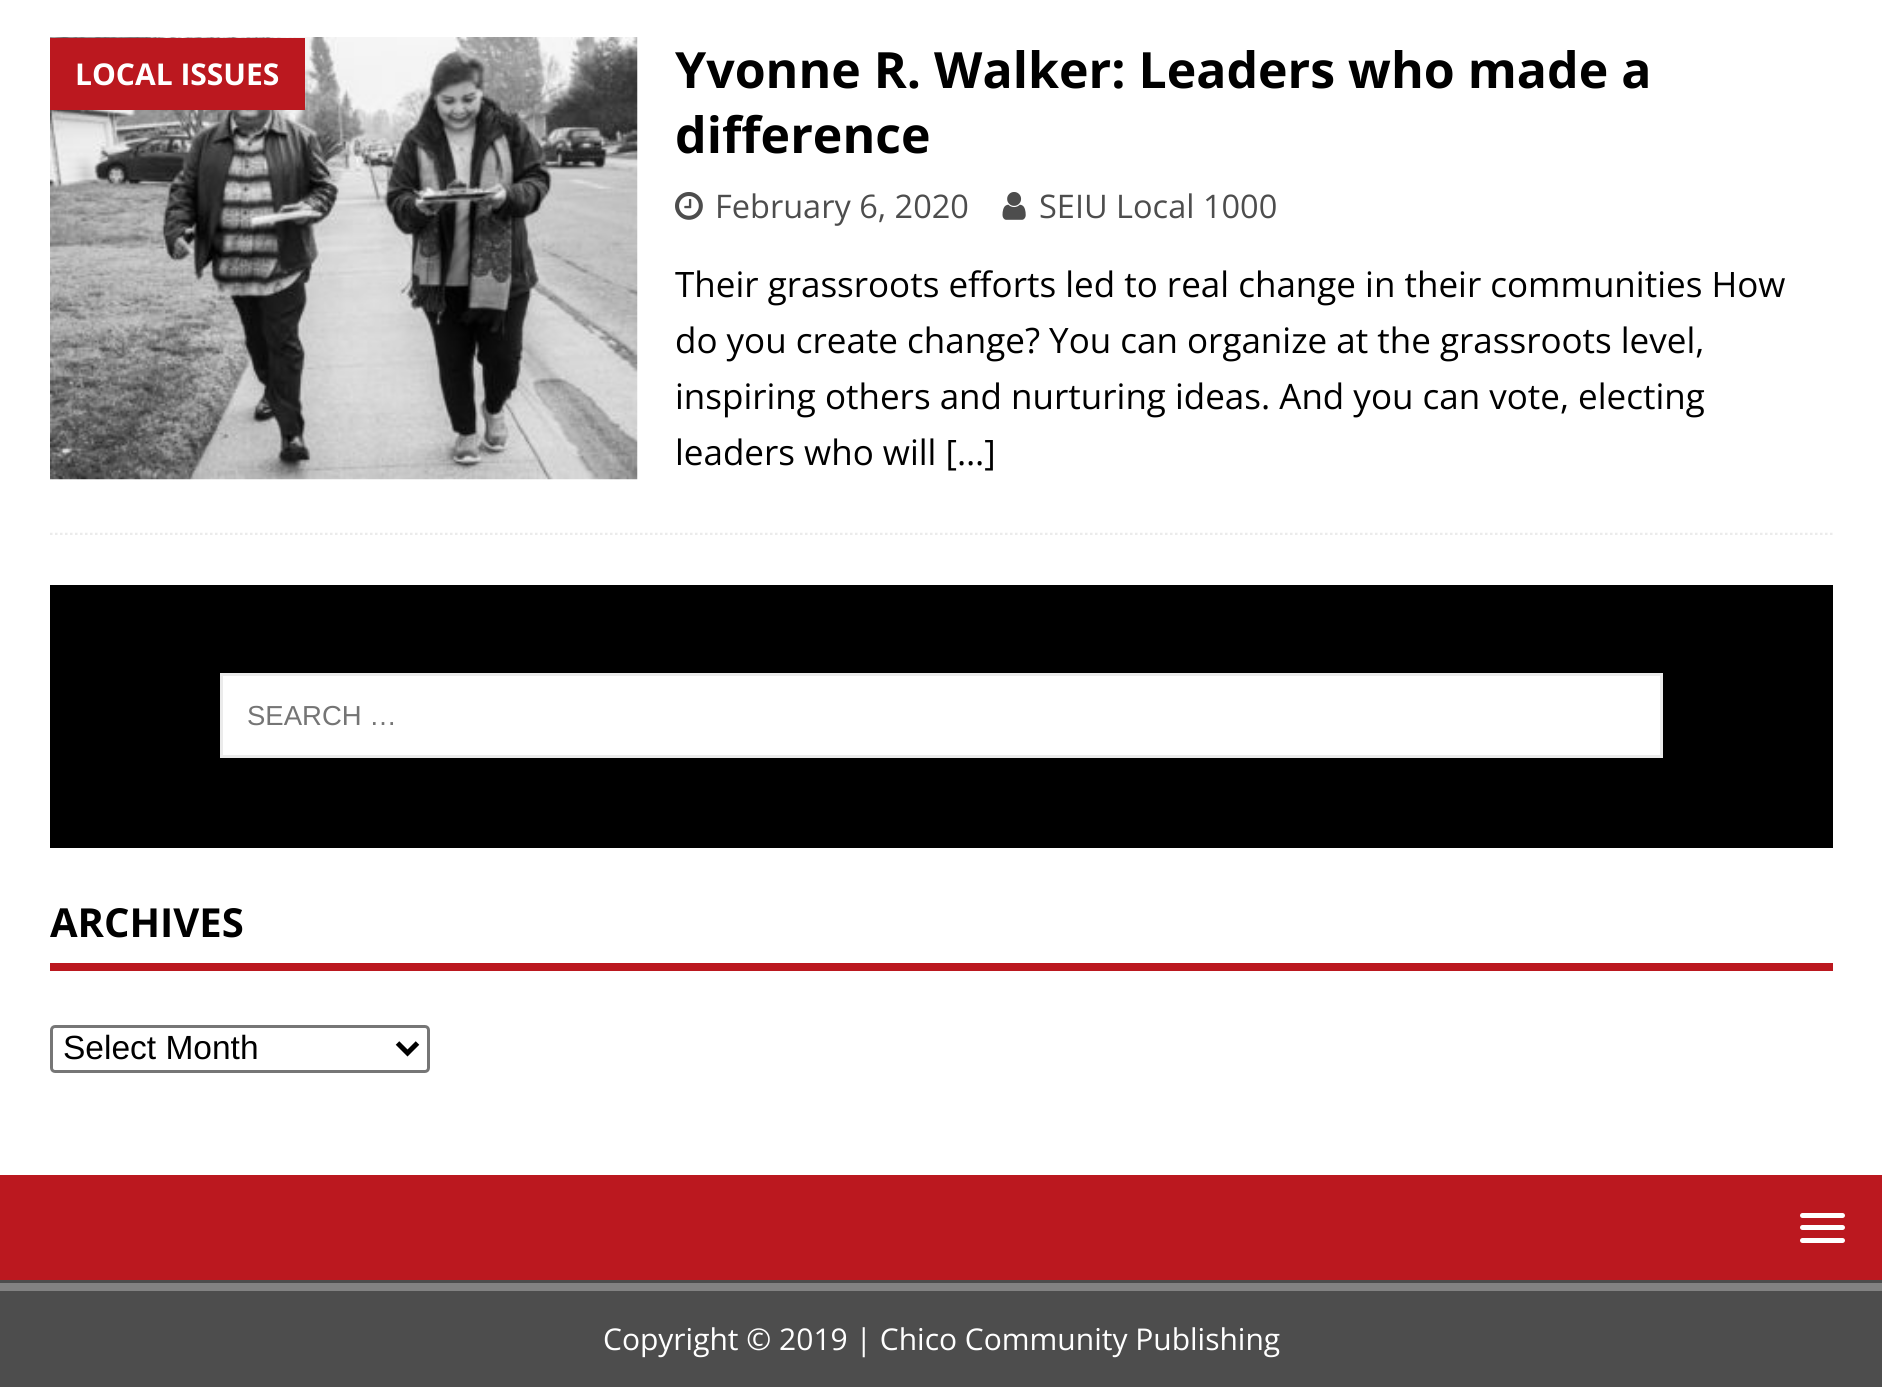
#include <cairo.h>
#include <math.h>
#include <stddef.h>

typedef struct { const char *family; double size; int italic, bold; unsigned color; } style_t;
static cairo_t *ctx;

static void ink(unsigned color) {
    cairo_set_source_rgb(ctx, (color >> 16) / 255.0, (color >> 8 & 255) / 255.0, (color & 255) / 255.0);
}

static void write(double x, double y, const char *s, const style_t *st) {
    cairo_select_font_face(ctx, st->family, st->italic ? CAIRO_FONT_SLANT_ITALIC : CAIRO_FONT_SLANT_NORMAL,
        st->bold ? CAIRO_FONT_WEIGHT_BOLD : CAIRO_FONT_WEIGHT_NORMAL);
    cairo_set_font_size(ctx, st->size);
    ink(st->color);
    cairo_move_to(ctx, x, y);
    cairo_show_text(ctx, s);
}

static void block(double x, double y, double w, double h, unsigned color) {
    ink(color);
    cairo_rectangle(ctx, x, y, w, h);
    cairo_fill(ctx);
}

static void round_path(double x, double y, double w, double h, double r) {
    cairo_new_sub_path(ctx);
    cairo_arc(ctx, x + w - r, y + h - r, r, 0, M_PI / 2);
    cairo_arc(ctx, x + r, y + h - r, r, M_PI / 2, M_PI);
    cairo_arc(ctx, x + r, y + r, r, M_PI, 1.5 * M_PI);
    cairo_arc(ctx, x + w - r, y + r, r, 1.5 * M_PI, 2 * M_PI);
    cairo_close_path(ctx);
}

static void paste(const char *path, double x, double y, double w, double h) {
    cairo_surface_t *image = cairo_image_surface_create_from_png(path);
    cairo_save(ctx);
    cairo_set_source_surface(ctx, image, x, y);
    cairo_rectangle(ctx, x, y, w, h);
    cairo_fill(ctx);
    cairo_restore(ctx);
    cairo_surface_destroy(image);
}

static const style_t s1 = {"Open Sans", 30, 0, 1, 0xffffff};
static const style_t s2 = {"Open Sans", 50, 0, 1, 0x000000};
static const style_t s3 = {"Open Sans", 32.5, 0, 0, 0x4d4d4d};
static const style_t s4 = {"Open Sans", 35, 0, 0, 0x000000};
static const style_t s5 = {"Liberation Sans", 27.5, 0, 0, 0x757575};
static const style_t s6 = {"Open Sans", 40, 0, 1, 0x000000};
static const style_t s7 = {"Liberation Sans", 33.5, 0, 0, 0x000000};
static const style_t s8 = {"Open Sans", 30, 0, 0, 0xffffff};

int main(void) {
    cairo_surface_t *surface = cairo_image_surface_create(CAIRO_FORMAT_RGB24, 1882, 1387);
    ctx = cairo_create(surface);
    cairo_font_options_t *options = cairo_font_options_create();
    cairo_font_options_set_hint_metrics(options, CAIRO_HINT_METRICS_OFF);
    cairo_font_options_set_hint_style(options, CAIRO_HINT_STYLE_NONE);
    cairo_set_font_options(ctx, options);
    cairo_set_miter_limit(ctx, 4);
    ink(0xbb181f);
    cairo_paint(ctx);
    block(0, 0, 1882, 1175, 0xffffff);
    cairo_save(ctx);
    cairo_rectangle(ctx, 50, 0, 1783, 535);
    cairo_clip(ctx);
    cairo_new_path(ctx);
    cairo_move_to(ctx, 50, 534);
    cairo_line_to(ctx, 1832.5, 534);
    ink(0xebebeb);
    cairo_set_line_width(ctx, 2.5);
    cairo_set_dash(ctx, (double[]){2.5, 2.5}, 2, 0);
    cairo_stroke(ctx);
    cairo_restore(ctx);
    paste("pic1.png", 50, 37, 588, 443);
    block(50, 38, 255, 72, 0xbb181f);
    write(75, 85, "LOCAL ISSUES", &s1);
    write(675, 88, "Yvonne R. Walker: Leaders who made a", &s2);
    write(675, 153, "difference", &s2);
    paste("pic2.png", 675, 192, 28, 28);
    write(715, 218, "February 6, 2020", &s3);
    paste("pic3.png", 1002, 192, 24, 28);
    write(1039, 218, "SEIU Local 1000", &s3);
    write(675, 297, "Their grassroots efforts led to real change in their communities How", &s4);
    write(675, 353, "do you create change? You can organize at the grassroots level,", &s4);
    write(675, 409, "inspiring others and nurturing ideas. And you can vote, electing", &s4);
    write(675, 465, "leaders who will […]", &s4);
    block(50, 585, 1783, 263, 0x000000);
    ink(0xffffff);
    cairo_rectangle(ctx, 221.5, 674.5, 1440, 82);
    cairo_fill_preserve(ctx);
    ink(0xebebeb);
    cairo_set_line_width(ctx, 3);
    cairo_stroke(ctx);
    write(247, 725, "SEARCH …", &s5);
    block(50, 963, 1783, 8, 0xbb181f);
    write(50, 937, "ARCHIVES", &s6);
    round_path(51.5, 1026.5, 377, 45, 3.5);
    ink(0x767676);
    cairo_stroke(ctx);
    cairo_new_path(ctx);
    cairo_move_to(ctx, 397.5, 1043);
    cairo_line_to(ctx, 407.5, 1053);
    cairo_line_to(ctx, 417.5, 1043);
    ink(0x000000);
    cairo_set_line_width(ctx, 5);
    cairo_stroke(ctx);
    write(63, 1059, "Select Month", &s7);
    block(0, 1280, 1882, 3, 0x4d4d4d);
    ink(0xffffff);
    round_path(1800, 1213, 45, 5, 2.5);
    cairo_fill(ctx);
    round_path(1800, 1225, 45, 5, 2.5);
    cairo_fill(ctx);
    round_path(1800, 1238, 45, 5, 2.5);
    cairo_fill(ctx);
    block(0, 1291, 1882, 96, 0x4d4d4d);
    block(0, 1283, 1882, 8, 0x828282);
    write(603, 1350, "Copyright © 2019 | Chico Community Publishing", &s8);
    cairo_surface_write_to_png(surface, "screenshot.png");
    cairo_font_options_destroy(options);
    cairo_destroy(ctx);
    cairo_surface_destroy(surface);
    return 0;
}
